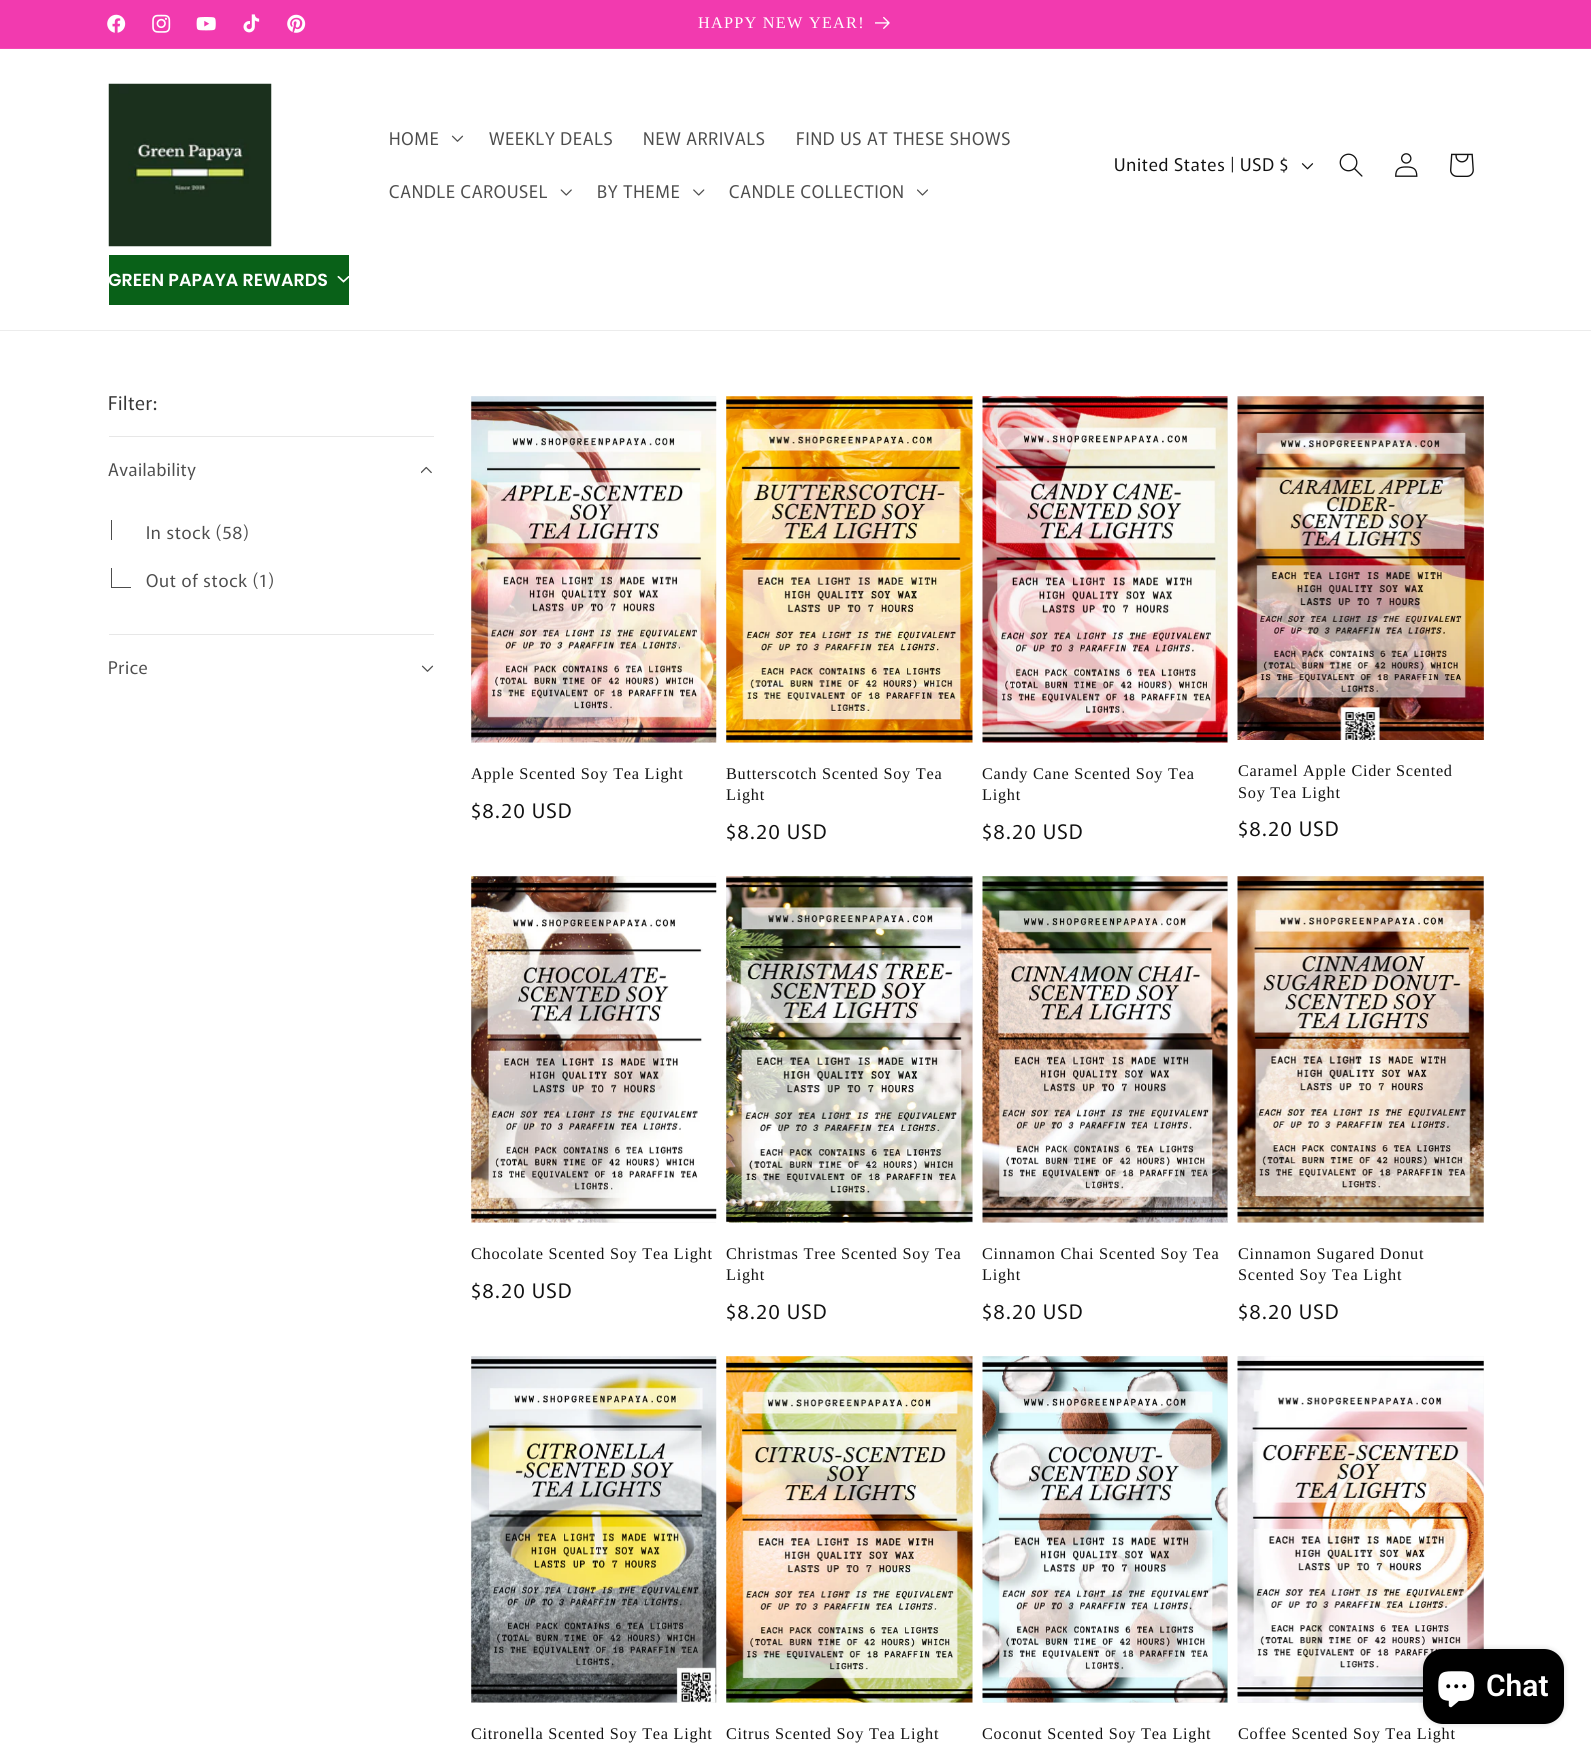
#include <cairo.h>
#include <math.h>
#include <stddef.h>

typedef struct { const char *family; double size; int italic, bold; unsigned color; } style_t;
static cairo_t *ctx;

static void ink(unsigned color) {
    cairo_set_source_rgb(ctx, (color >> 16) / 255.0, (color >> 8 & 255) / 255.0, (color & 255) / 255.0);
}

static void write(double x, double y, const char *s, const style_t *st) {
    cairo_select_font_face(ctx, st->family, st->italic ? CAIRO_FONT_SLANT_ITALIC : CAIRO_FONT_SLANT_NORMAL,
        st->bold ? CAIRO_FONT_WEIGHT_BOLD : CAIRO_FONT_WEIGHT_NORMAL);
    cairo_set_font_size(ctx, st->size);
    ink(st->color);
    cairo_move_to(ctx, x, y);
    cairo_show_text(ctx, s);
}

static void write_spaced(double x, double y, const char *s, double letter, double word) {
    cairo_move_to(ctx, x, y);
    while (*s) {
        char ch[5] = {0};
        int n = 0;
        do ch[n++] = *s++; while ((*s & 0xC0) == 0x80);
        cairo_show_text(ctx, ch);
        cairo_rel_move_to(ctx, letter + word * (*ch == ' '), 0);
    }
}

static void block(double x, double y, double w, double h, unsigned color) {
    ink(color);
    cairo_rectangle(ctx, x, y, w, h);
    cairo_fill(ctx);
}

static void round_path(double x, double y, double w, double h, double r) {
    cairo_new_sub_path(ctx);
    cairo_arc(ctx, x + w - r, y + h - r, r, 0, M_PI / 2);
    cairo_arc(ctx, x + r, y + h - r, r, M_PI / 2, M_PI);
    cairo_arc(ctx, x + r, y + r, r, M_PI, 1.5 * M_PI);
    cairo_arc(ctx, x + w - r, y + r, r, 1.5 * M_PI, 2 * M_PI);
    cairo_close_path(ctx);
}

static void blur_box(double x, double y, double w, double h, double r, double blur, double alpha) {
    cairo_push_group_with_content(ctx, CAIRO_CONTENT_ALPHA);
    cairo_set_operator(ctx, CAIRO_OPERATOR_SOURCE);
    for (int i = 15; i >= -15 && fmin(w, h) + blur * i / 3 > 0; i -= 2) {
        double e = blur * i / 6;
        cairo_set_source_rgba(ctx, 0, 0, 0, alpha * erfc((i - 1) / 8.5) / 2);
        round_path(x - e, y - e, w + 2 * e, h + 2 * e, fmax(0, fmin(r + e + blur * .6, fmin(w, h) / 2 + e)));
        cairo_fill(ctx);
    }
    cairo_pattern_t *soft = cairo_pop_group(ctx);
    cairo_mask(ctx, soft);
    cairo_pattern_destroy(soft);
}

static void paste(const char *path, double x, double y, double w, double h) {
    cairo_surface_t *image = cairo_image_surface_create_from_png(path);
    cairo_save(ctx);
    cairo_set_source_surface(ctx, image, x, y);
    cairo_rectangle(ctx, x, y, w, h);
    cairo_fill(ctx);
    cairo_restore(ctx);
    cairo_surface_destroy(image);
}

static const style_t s1 = {"Poppins SemiBold", 17.5, 0, 0, 0xffffff};
static const style_t s2 = {"Roboto SemiBold", 30, 0, 0, 0xffffff};

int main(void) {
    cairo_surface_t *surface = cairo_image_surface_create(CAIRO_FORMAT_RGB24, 1591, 1749);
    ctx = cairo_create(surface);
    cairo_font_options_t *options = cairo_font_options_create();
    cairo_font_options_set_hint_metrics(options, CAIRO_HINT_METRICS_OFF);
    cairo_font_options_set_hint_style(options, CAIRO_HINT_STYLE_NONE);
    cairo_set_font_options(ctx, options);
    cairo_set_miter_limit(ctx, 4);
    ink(0xffffff);
    cairo_paint(ctx);
    block(0, 0, 1591, 48, 0xf23aaf);
    block(0, 48, 1591, 1, 0xf34ab5);
    paste("pic1.png", 107, 14, 19, 19);
    paste("pic2.png", 152, 14, 19, 19);
    paste("pic3.png", 196, 17, 20, 14);
    paste("pic4.png", 243, 14, 17, 19);
    paste("pic5.png", 287, 14, 19, 19);
    cairo_select_font_face(ctx, "Liberation Serif", CAIRO_FONT_SLANT_NORMAL, CAIRO_FONT_WEIGHT_NORMAL);
    cairo_set_font_size(ctx, 16.25);
    ink(0xffffff);
    write_spaced(698, 28, "HAPPY NEW YEAR!", 1.25, 0);
    paste("pic6.png", 875, 16, 15, 13);
    block(0, 330, 1591, 1, 0xececec);
    paste("pic7.png", 108, 83, 164, 164);
    cairo_select_font_face(ctx, "Murecho", CAIRO_FONT_SLANT_NORMAL, CAIRO_FONT_WEIGHT_NORMAL);
    cairo_set_font_size(ctx, 17.5);
    ink(0x4d4d4d);
    write_spaced(389, 145, "HOME", 0.75, 0);
    paste("pic8.png", 451, 135, 13, 7);
    write_spaced(489, 145, "WEEKLY DEALS", 0.75, 0);
    write_spaced(643, 145, "NEW ARRIVALS", 0.75, 0);
    write_spaced(796, 145, "FIND US AT THESE SHOWS", 0.75, 0);
    write_spaced(389, 198, "CANDLE CAROUSEL", 0.75, 0);
    paste("pic9.png", 560, 189, 12, 7);
    write_spaced(597, 198, "BY THEME", 0.75, 0);
    paste("pic10.png", 693, 189, 12, 7);
    write_spaced(729, 198, "CANDLE COLLECTION", 0.75, 0);
    paste("pic11.png", 917, 189, 11, 7);
    ink(0x121212);
    write_spaced(1114, 171, "United States | USD $", 0.75, 0);
    paste("pic12.png", 1301, 163, 13, 7);
    paste("pic13.png", 1339, 153, 24, 24);
    paste("pic14.png", 1395, 153, 23, 24);
    paste("pic15.png", 1450, 153, 24, 24);
    block(109, 255, 240, 50, 0x096118);
    write(108, 286, "GREEN PAPAYA REWARDS", &s1);
    paste("pic16.png", 337, 276, 12, 7);
    cairo_select_font_face(ctx, "Murecho", CAIRO_FONT_SLANT_NORMAL, CAIRO_FONT_WEIGHT_NORMAL);
    cairo_set_font_size(ctx, 19);
    ink(0x363636);
    write_spaced(108, 410, "Filter:", 0.5, 0);
    block(109, 436, 325, 1, 0xe7e7e7);
    cairo_set_font_size(ctx, 17.5);
    ink(0x4d4d4d);
    write_spaced(108, 476, "Availability", 0.5, 0);
    paste("pic17.png", 421, 466, 11, 8);
    cairo_save(ctx);
    cairo_rectangle(ctx, 111, 520, 20, 20);
    cairo_clip(ctx);
    cairo_rectangle(ctx, 111.5, 519.5, 20, 21);
    cairo_set_line_width(ctx, 1);
    cairo_stroke(ctx);
    cairo_restore(ctx);
    write_spaced(146, 539, "In stock (58)", 0.75, 0);
    cairo_save(ctx);
    cairo_rectangle(ctx, 111, 568, 20, 20);
    cairo_clip(ctx);
    cairo_rectangle(ctx, 111.5, 567.5, 20, 20);
    cairo_set_line_width(ctx, 1);
    cairo_stroke(ctx);
    cairo_restore(ctx);
    write_spaced(146, 587, "Out of stock (1)", 0.75, 0);
    block(109, 634, 325, 1, 0xe7e7e7);
    ink(0x4d4d4d);
    write_spaced(108, 674, "Price", 0.5, 0);
    paste("pic8.png", 421, 665, 13, 7);
    block(471, 396, 245, 347, 0xf3f3f3);
    paste("pic18.png", 471, 396, 246, 347);
    cairo_select_font_face(ctx, "Liberation Serif", CAIRO_FONT_SLANT_NORMAL, CAIRO_FONT_WEIGHT_NORMAL);
    cairo_set_font_size(ctx, 16.25);
    ink(0x121212);
    write_spaced(471, 779, "Apple Scented Soy Tea Light", 0.75, 0);
    cairo_select_font_face(ctx, "Murecho", CAIRO_FONT_SLANT_NORMAL, CAIRO_FONT_WEIGHT_NORMAL);
    cairo_set_font_size(ctx, 20);
    write_spaced(471, 818, "$8.20 USD", 1.25, 0);
    block(726, 396, 247, 347, 0xf3f3f3);
    paste("pic19.png", 726, 396, 247, 347);
    cairo_select_font_face(ctx, "Liberation Serif", CAIRO_FONT_SLANT_NORMAL, CAIRO_FONT_WEIGHT_NORMAL);
    cairo_set_font_size(ctx, 16.25);
    ink(0x121212);
    write_spaced(726, 779, "Butterscotch Scented Soy Tea", 0.75, 0);
    write_spaced(726, 800, "Light", 0.75, 0);
    cairo_select_font_face(ctx, "Murecho", CAIRO_FONT_SLANT_NORMAL, CAIRO_FONT_WEIGHT_NORMAL);
    cairo_set_font_size(ctx, 20);
    write_spaced(726, 839, "$8.20 USD", 1.25, 0);
    block(983, 396, 245, 347, 0xf3f3f3);
    paste("pic20.png", 982, 396, 246, 347);
    cairo_select_font_face(ctx, "Liberation Serif", CAIRO_FONT_SLANT_NORMAL, CAIRO_FONT_WEIGHT_NORMAL);
    cairo_set_font_size(ctx, 16.25);
    ink(0x121212);
    write_spaced(982, 779, "Candy Cane Scented Soy Tea", 0.75, 0);
    write_spaced(982, 800, "Light", 0.75, 0);
    cairo_select_font_face(ctx, "Murecho", CAIRO_FONT_SLANT_NORMAL, CAIRO_FONT_WEIGHT_NORMAL);
    cairo_set_font_size(ctx, 20);
    write_spaced(982, 839, "$8.20 USD", 1.25, 0);
    block(1238, 396, 246, 344, 0xf3f3f3);
    paste("pic21.png", 1237, 396, 247, 344);
    cairo_select_font_face(ctx, "Liberation Serif", CAIRO_FONT_SLANT_NORMAL, CAIRO_FONT_WEIGHT_NORMAL);
    cairo_set_font_size(ctx, 16.25);
    ink(0x121212);
    write_spaced(1238, 776, "Caramel Apple Cider Scented", 0.75, 0);
    write_spaced(1238, 798, "Soy Tea Light", 0.75, 0);
    cairo_select_font_face(ctx, "Murecho", CAIRO_FONT_SLANT_NORMAL, CAIRO_FONT_WEIGHT_NORMAL);
    cairo_set_font_size(ctx, 20);
    write_spaced(1238, 836, "$8.20 USD", 1.25, 0);
    block(471, 876, 245, 347, 0xf3f3f3);
    paste("pic22.png", 471, 876, 246, 347);
    cairo_select_font_face(ctx, "Liberation Serif", CAIRO_FONT_SLANT_NORMAL, CAIRO_FONT_WEIGHT_NORMAL);
    cairo_set_font_size(ctx, 16.25);
    ink(0x121212);
    write_spaced(471, 1259, "Chocolate Scented Soy Tea Light", 0.75, 0);
    cairo_select_font_face(ctx, "Murecho", CAIRO_FONT_SLANT_NORMAL, CAIRO_FONT_WEIGHT_NORMAL);
    cairo_set_font_size(ctx, 20);
    write_spaced(471, 1298, "$8.20 USD", 1.25, 0);
    block(726, 876, 247, 347, 0xf3f3f3);
    paste("pic23.png", 726, 876, 247, 347);
    cairo_select_font_face(ctx, "Liberation Serif", CAIRO_FONT_SLANT_NORMAL, CAIRO_FONT_WEIGHT_NORMAL);
    cairo_set_font_size(ctx, 16.25);
    ink(0x121212);
    write_spaced(726, 1259, "Christmas Tree Scented Soy Tea", 0.75, 0);
    write_spaced(726, 1280, "Light", 0.75, 0);
    cairo_select_font_face(ctx, "Murecho", CAIRO_FONT_SLANT_NORMAL, CAIRO_FONT_WEIGHT_NORMAL);
    cairo_set_font_size(ctx, 20);
    write_spaced(726, 1319, "$8.20 USD", 1.25, 0);
    block(983, 876, 245, 347, 0xf3f3f3);
    paste("pic24.png", 982, 876, 246, 347);
    cairo_select_font_face(ctx, "Liberation Serif", CAIRO_FONT_SLANT_NORMAL, CAIRO_FONT_WEIGHT_NORMAL);
    cairo_set_font_size(ctx, 16.25);
    ink(0x121212);
    write_spaced(982, 1259, "Cinnamon Chai Scented Soy Tea", 0.75, 0);
    write_spaced(982, 1280, "Light", 0.75, 0);
    cairo_select_font_face(ctx, "Murecho", CAIRO_FONT_SLANT_NORMAL, CAIRO_FONT_WEIGHT_NORMAL);
    cairo_set_font_size(ctx, 20);
    write_spaced(982, 1319, "$8.20 USD", 1.25, 0);
    block(1238, 876, 246, 347, 0xf3f3f3);
    paste("pic25.png", 1237, 876, 247, 347);
    cairo_select_font_face(ctx, "Liberation Serif", CAIRO_FONT_SLANT_NORMAL, CAIRO_FONT_WEIGHT_NORMAL);
    cairo_set_font_size(ctx, 16.25);
    ink(0x121212);
    write_spaced(1238, 1259, "Cinnamon Sugared Donut", 0.75, 0);
    write_spaced(1238, 1280, "Scented Soy Tea Light", 0.75, 0);
    cairo_select_font_face(ctx, "Murecho", CAIRO_FONT_SLANT_NORMAL, CAIRO_FONT_WEIGHT_NORMAL);
    cairo_set_font_size(ctx, 20);
    write_spaced(1238, 1319, "$8.20 USD", 1.25, 0);
    block(471, 1356, 245, 347, 0xf3f3f3);
    paste("pic26.png", 471, 1356, 246, 347);
    cairo_select_font_face(ctx, "Liberation Serif", CAIRO_FONT_SLANT_NORMAL, CAIRO_FONT_WEIGHT_NORMAL);
    cairo_set_font_size(ctx, 16.25);
    ink(0x121212);
    write_spaced(471, 1739, "Citronella Scented Soy Tea Light", 0.75, 0);
    block(726, 1356, 247, 347, 0xf3f3f3);
    paste("pic27.png", 726, 1356, 247, 347);
    ink(0x121212);
    write_spaced(726, 1739, "Citrus Scented Soy Tea Light", 0.75, 0);
    block(983, 1356, 245, 347, 0xf3f3f3);
    paste("pic28.png", 982, 1356, 246, 347);
    ink(0x121212);
    write_spaced(982, 1739, "Coconut Scented Soy Tea Light", 0.75, 0);
    block(1238, 1356, 246, 347, 0xf3f3f3);
    paste("pic29.png", 1237, 1356, 247, 347);
    ink(0x121212);
    write_spaced(1238, 1739, "Coffee Scented Soy Tea Light", 0.75, 0);
    ink(0x000000);
    blur_box(1423, 1649, 141, 75, 20, 3, 0.15);
    ink(0x000000);
    round_path(1423, 1649, 141, 75, 20);
    cairo_fill(ctx);
    paste("pic30.png", 1438, 1671, 37, 37);
    write(1486, 1696, "Chat", &s2);
    cairo_surface_write_to_png(surface, "screenshot.png");
    cairo_font_options_destroy(options);
    cairo_destroy(ctx);
    cairo_surface_destroy(surface);
    return 0;
}
